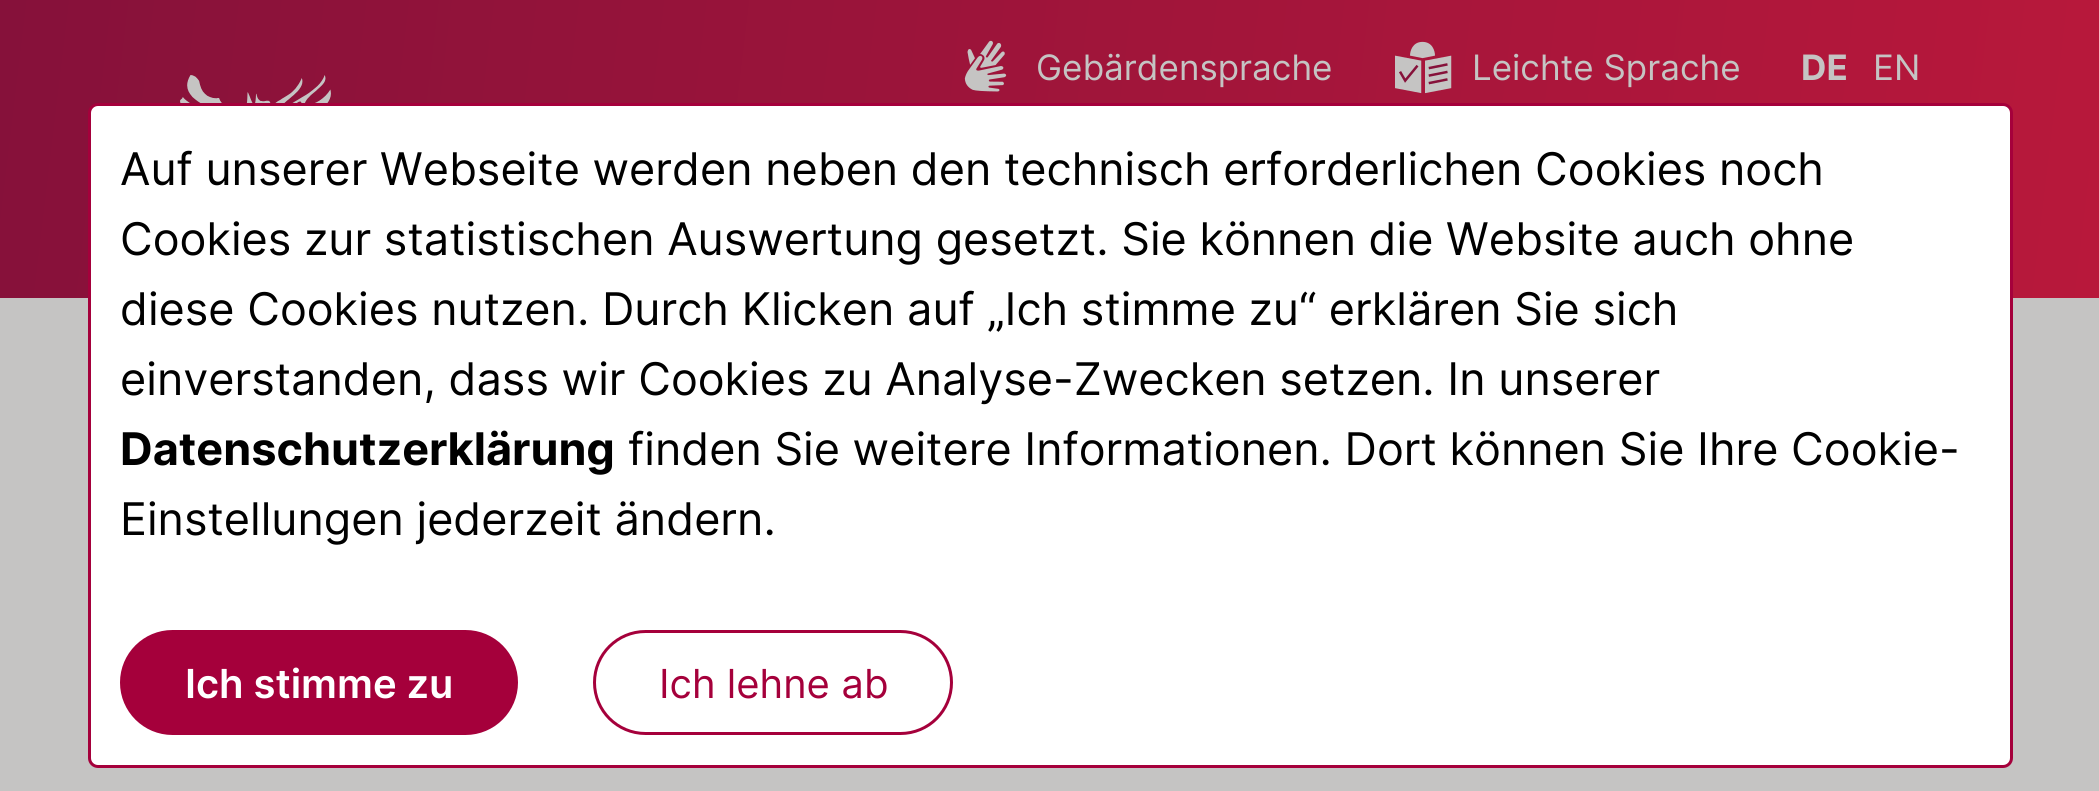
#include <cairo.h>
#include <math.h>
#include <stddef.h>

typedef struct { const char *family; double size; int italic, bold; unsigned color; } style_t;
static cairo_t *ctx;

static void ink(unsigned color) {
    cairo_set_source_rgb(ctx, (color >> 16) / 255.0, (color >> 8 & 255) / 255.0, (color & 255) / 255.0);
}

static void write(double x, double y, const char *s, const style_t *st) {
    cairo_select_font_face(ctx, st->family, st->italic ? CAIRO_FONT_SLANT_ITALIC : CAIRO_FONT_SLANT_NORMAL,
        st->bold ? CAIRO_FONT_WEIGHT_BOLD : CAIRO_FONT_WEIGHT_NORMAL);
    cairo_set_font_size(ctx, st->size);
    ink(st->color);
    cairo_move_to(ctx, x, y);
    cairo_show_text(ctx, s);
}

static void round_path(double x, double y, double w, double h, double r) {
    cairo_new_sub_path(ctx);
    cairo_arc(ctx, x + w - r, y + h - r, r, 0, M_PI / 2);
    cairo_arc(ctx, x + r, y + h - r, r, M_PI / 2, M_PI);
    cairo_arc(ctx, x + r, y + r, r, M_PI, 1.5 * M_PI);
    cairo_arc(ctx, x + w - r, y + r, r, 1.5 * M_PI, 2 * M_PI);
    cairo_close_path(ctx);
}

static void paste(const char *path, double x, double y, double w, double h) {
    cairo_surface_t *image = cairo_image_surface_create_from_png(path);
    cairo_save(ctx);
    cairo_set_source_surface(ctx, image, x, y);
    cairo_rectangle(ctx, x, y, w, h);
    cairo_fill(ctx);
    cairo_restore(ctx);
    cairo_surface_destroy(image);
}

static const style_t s1 = {"Inter", 35, 0, 0, 0xc5c4c3};
static const style_t s2 = {"Inter", 35, 0, 1, 0xc5c4c3};
static const style_t s3 = {"Inter", 45, 0, 0, 0x000000};
static const style_t s4 = {"Inter", 45, 0, 1, 0x000000};
static const style_t s5 = {"Inter SemiBold", 40, 0, 0, 0xffffff};
static const style_t s6 = {"Inter", 40, 0, 0, 0xa5003b};

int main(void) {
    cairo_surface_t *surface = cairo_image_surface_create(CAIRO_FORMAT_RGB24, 2099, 791);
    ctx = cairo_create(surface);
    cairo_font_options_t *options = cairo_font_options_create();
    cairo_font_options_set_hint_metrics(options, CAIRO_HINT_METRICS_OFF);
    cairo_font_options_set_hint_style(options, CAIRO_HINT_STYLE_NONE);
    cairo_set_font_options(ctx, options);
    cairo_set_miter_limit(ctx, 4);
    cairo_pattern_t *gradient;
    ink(0xc5c4c3);
    cairo_paint(ctx);
    gradient = cairo_pattern_create_linear(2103, 275, -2.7, 23);
    cairo_pattern_add_color_stop_rgba(gradient, 0, 0.722, 0.094, 0.231, 1);
    cairo_pattern_add_color_stop_rgba(gradient, 1, 0.525, 0.067, 0.227, 1);
    cairo_set_source(ctx, gradient);
    cairo_pattern_destroy(gradient);
    cairo_rectangle(ctx, 0, 0, 2099, 298);
    cairo_fill(ctx);
    paste("pic1.png", 180, 75, 151, 28);
    paste("pic2.png", 964, 40, 43, 52);
    write(1036, 80, "Gebärdensprache", &s1);
    paste("pic3.png", 1395, 41, 57, 53);
    write(1472, 80, "Leichte Sprache", &s1);
    write(1801, 80, "DE", &s2);
    write(1873, 80, "EN", &s1);
    ink(0xffffff);
    round_path(89.5, 104.5, 1922, 662, 8.5);
    cairo_fill_preserve(ctx);
    ink(0xa5003b);
    cairo_set_line_width(ctx, 3);
    cairo_stroke(ctx);
    write(120, 185, "Auf unserer Webseite werden neben den technisch erforderlichen Cookies noch", &s3);
    write(120, 255, "Cookies zur statistischen Auswertung gesetzt. Sie können die Website auch ohne", &s3);
    write(120, 325, "diese Cookies nutzen. Durch Klicken auf „Ich stimme zu“ erklären Sie sich", &s3);
    write(120, 395, "einverstanden, dass wir Cookies zu Analyse-Zwecken setzen. In unserer", &s3);
    write(120, 465, "Datenschutzerklärung", &s4);
    write(628, 465, "finden Sie weitere Informationen. Dort können Sie Ihre Cookie-", &s3);
    write(120, 535, "Einstellungen jederzeit ändern.", &s3);
    ink(0xa5003b);
    round_path(121.5, 631.5, 395, 102, 51);
    cairo_fill_preserve(ctx);
    cairo_stroke(ctx);
    write(185, 698, "Ich stimme zu", &s5);
    round_path(594.5, 631.5, 357, 102, 51);
    ink(0xa5003b);
    cairo_stroke(ctx);
    write(659, 698, "Ich lehne ab", &s6);
    cairo_surface_write_to_png(surface, "screenshot.png");
    cairo_font_options_destroy(options);
    cairo_destroy(ctx);
    cairo_surface_destroy(surface);
    return 0;
}
